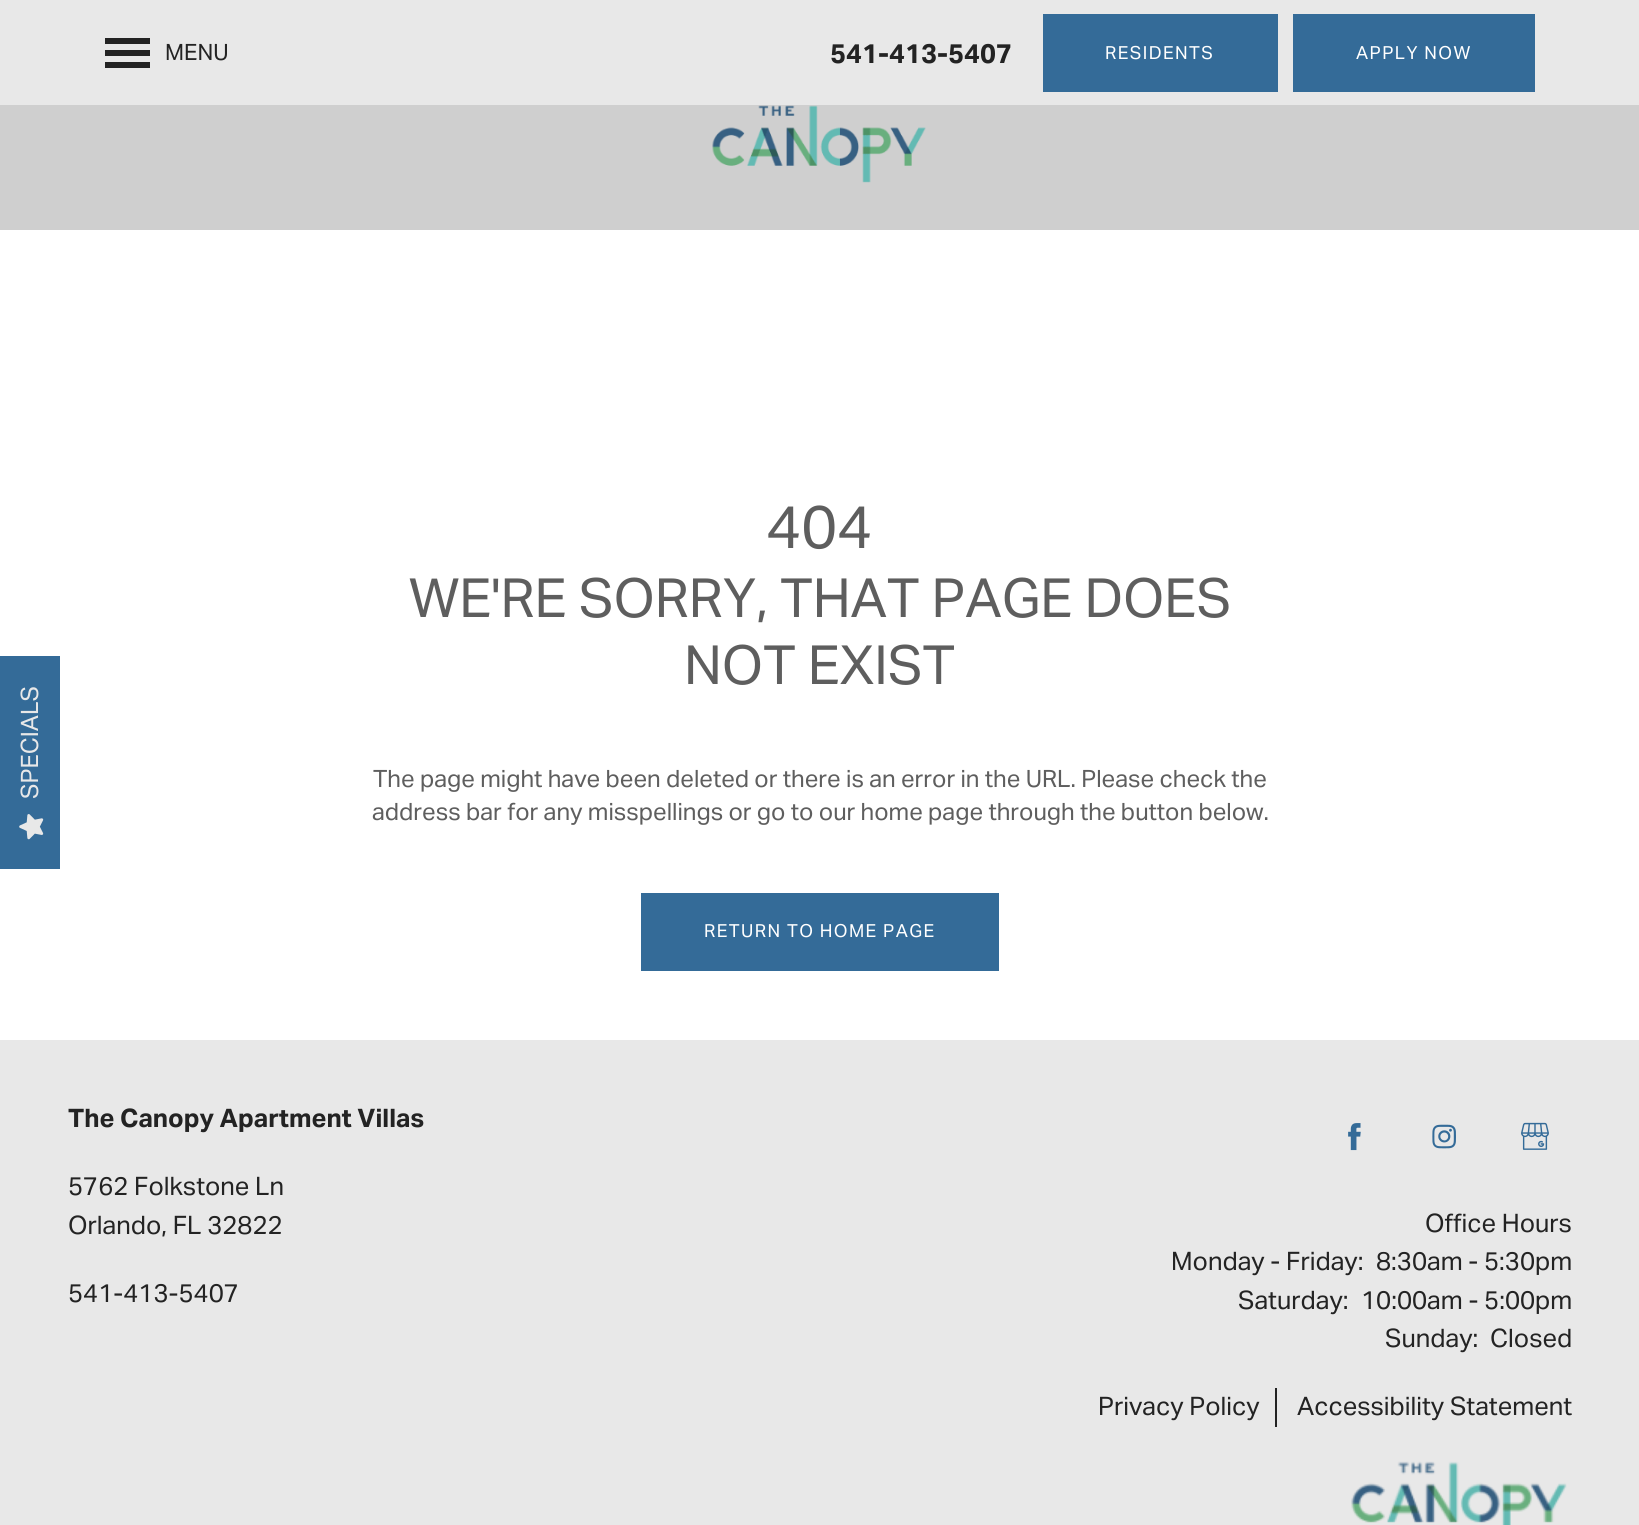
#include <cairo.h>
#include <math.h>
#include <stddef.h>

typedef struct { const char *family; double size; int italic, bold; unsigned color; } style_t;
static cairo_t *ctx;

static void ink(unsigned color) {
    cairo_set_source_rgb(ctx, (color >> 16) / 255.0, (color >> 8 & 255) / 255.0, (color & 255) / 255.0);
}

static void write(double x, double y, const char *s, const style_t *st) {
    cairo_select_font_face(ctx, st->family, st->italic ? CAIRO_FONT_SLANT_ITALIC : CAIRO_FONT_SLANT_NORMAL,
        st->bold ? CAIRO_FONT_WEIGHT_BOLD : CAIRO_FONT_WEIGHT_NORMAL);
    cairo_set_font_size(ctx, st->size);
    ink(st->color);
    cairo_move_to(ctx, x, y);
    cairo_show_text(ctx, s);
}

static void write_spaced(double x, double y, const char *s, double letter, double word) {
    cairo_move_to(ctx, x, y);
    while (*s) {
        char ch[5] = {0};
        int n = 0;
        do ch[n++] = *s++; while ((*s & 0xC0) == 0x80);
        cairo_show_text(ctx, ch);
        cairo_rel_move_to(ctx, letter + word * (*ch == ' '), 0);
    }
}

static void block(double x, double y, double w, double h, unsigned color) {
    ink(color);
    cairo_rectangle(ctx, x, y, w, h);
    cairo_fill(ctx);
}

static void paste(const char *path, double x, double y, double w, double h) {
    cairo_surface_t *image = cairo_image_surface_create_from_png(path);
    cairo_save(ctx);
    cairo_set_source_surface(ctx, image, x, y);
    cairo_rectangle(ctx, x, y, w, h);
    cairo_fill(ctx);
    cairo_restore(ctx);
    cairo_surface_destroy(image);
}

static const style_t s1 = {"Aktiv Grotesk", 22.5, 0, 0, 0x232323};
static const style_t s2 = {"Aktiv Grotesk", 27, 0, 1, 0x232323};
static const style_t s3 = {"Aktiv Grotesk", 24, 0, 0, 0xe8e8e8};
static const style_t s4 = {"Aktiv Grotesk", 60, 0, 0, 0x5e5e5e};
static const style_t s5 = {"Aktiv Grotesk", 54, 0, 0, 0x5e5e5e};
static const style_t s6 = {"Aktiv Grotesk", 23.9, 0, 0, 0x5e5e5e};
static const style_t s7 = {"Aktiv Grotesk", 25.5, 0, 1, 0x232323};
static const style_t s8 = {"Aktiv Grotesk", 25.5, 0, 0, 0x232323};

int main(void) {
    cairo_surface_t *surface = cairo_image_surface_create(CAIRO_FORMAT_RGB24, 1639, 1525);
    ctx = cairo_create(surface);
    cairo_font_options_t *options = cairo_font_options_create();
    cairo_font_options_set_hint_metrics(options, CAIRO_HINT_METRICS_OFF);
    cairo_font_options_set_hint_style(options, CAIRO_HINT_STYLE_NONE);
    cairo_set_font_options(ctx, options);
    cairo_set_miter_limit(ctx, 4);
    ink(0xffffff);
    cairo_paint(ctx);
    block(0, 0, 1639, 105, 0xe8e8e8);
    block(105, 38, 45, 6, 0x232323);
    block(105, 50, 45, 6, 0x232323);
    block(105, 62, 45, 6, 0x232323);
    write(165, 60, "MENU", &s1);
    write(830, 63, "541-413-5407", &s2);
    block(1043, 14, 235, 78, 0x346b98);
    cairo_select_font_face(ctx, "Aktiv Grotesk", CAIRO_FONT_SLANT_NORMAL, CAIRO_FONT_WEIGHT_NORMAL);
    cairo_set_font_size(ctx, 18);
    ink(0xffffff);
    write_spaced(1105, 59, "RESIDENTS", 1.4, 0);
    block(1293, 14, 242, 78, 0x346b98);
    ink(0xffffff);
    write_spaced(1356, 59, "APPLY NOW", 1.4, 0);
    block(0, 105, 1639, 125, 0xcfcfcf);
    paste("pic1.png", 712, 105, 214, 78);
    block(0, 656, 60, 213, 0x346b98);
    cairo_save(ctx);
    cairo_translate(ctx, 38, 799);
    cairo_rotate(ctx, -90 * M_PI / 180);
    write(0, 0, "SPECIALS", &s3);
    cairo_restore(ctx);
    paste("pic2.png", 19, 814, 25, 26);
    write(766, 548, "404", &s4);
    write(409, 617, "WE'RE SORRY, THAT PAGE DOES", &s5);
    write(684, 684, "NOT EXIST", &s5);
    write(373, 787, "The page might have been deleted or there is an error in the URL. Please check the", &s6);
    write(372, 820, "address bar for any misspellings or go to our home page through the button below.", &s6);
    block(641, 893, 358, 78, 0x346b98);
    cairo_set_font_size(ctx, 18);
    ink(0xffffff);
    write_spaced(704, 937, "RETURN TO HOME PAGE", 1.4, 0);
    block(0, 1040, 1639, 485, 0xe8e8e8);
    write(68, 1127, "The Canopy Apartment Villas", &s7);
    write(68, 1195, "5762 Folkstone Ln", &s8);
    write(68, 1234, "Orlando, FL 32822", &s8);
    write(68, 1302, "541-413-5407", &s8);
    paste("pic3.png", 1348, 1123, 13, 28);
    paste("pic4.png", 1432, 1124, 24, 25);
    paste("pic5.png", 1521, 1122, 28, 28);
    write(1425, 1232, "Office Hours", &s8);
    write(1171, 1270, "Monday - Friday:", &s8);
    write(1376, 1270, "8:30am - 5:30pm", &s8);
    write(1238, 1309, "Saturday:", &s8);
    write(1361, 1309, "10:00am - 5:00pm", &s8);
    write(1385, 1347, "Sunday:", &s8);
    write(1490, 1347, "Closed", &s8);
    block(1275, 1388, 2, 39, 0x232323);
    write(1098, 1415, "Privacy Policy", &s8);
    write(1297, 1415, "Accessibility Statement", &s8);
    paste("pic6.png", 1351, 1461, 216, 64);
    cairo_surface_write_to_png(surface, "screenshot.png");
    cairo_font_options_destroy(options);
    cairo_destroy(ctx);
    cairo_surface_destroy(surface);
    return 0;
}
